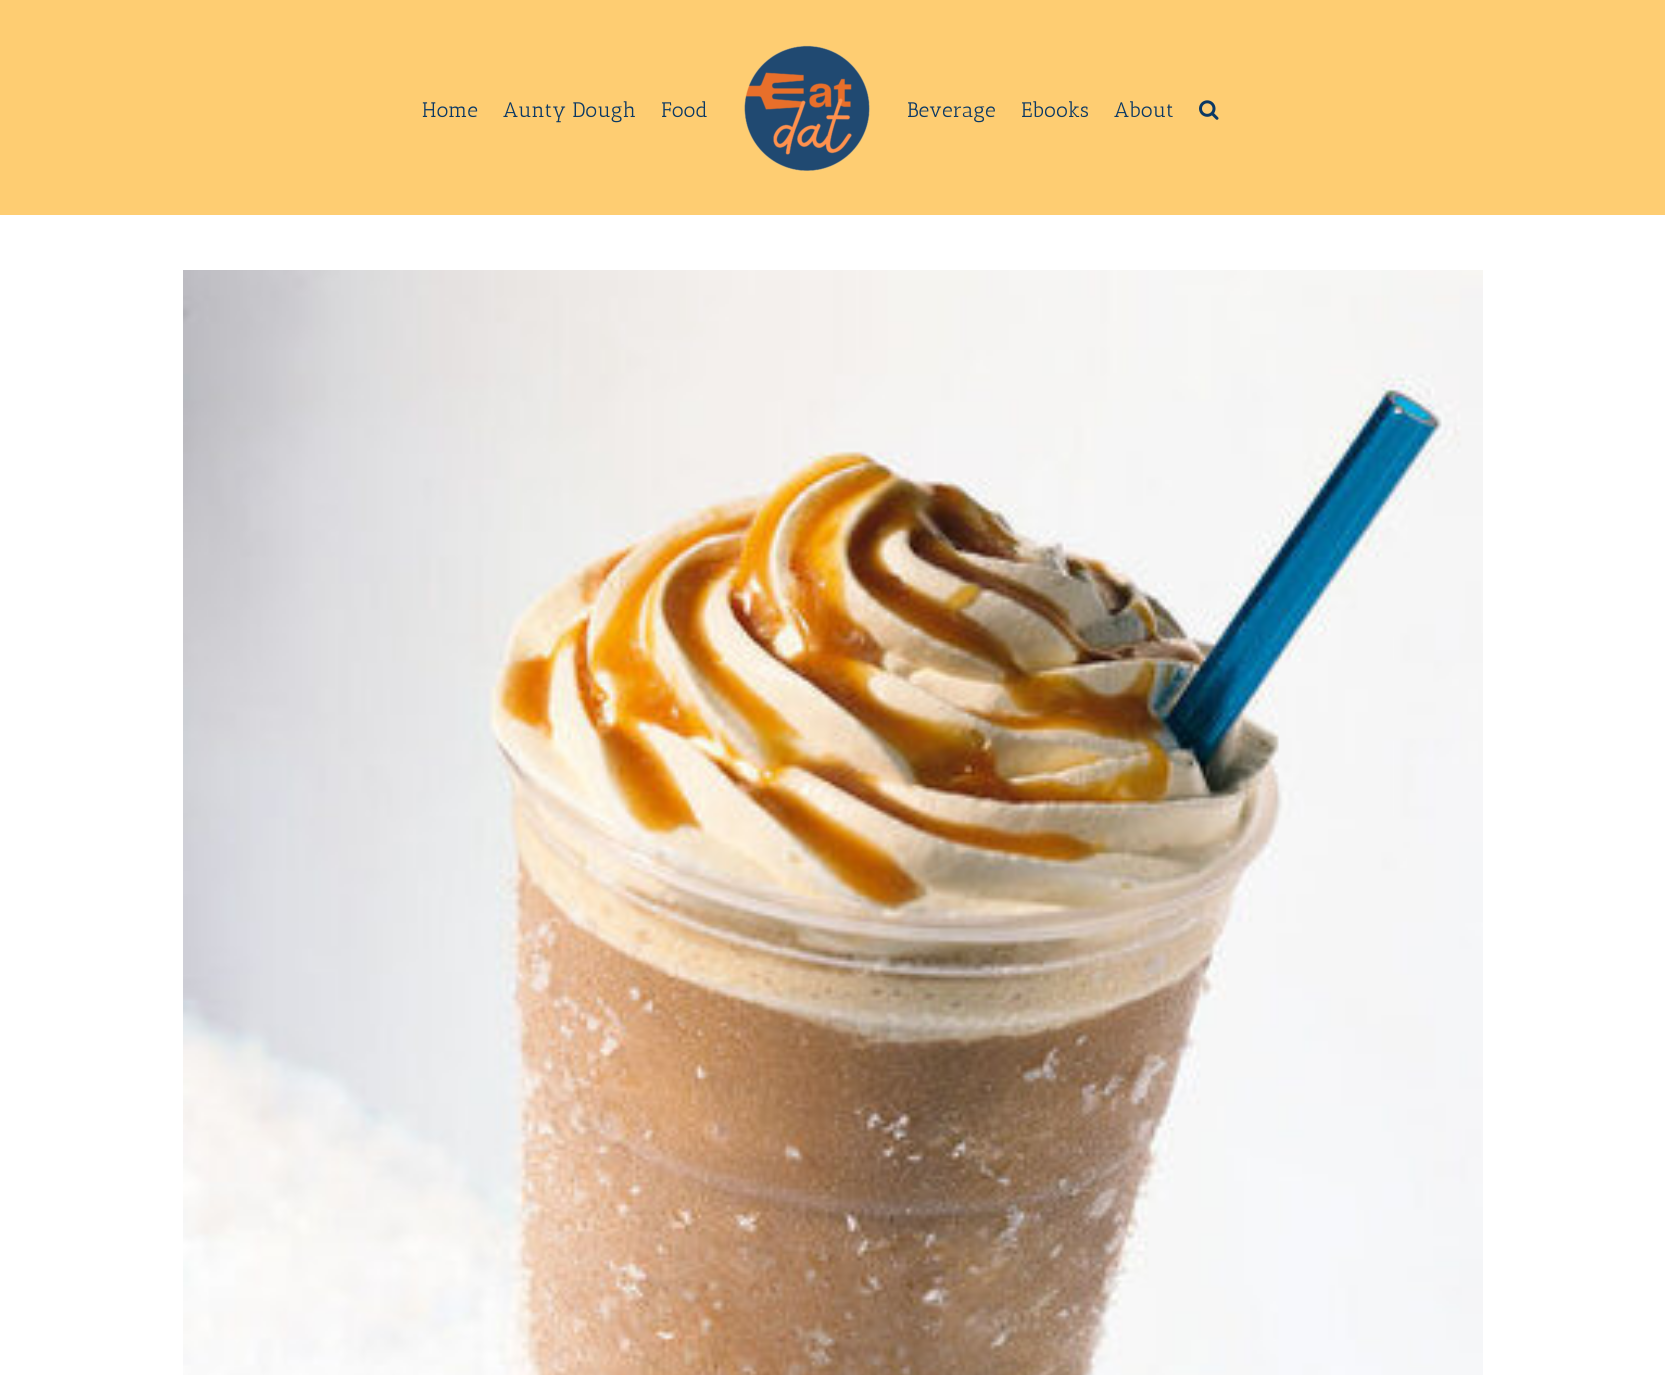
#include <cairo.h>
#include <math.h>
#include <stddef.h>

typedef struct { const char *family; double size; int italic, bold; unsigned color; } style_t;
static cairo_t *ctx;

static void ink(unsigned color) {
    cairo_set_source_rgb(ctx, (color >> 16) / 255.0, (color >> 8 & 255) / 255.0, (color & 255) / 255.0);
}

static void write(double x, double y, const char *s, const style_t *st) {
    cairo_select_font_face(ctx, st->family, st->italic ? CAIRO_FONT_SLANT_ITALIC : CAIRO_FONT_SLANT_NORMAL,
        st->bold ? CAIRO_FONT_WEIGHT_BOLD : CAIRO_FONT_WEIGHT_NORMAL);
    cairo_set_font_size(ctx, st->size);
    ink(st->color);
    cairo_move_to(ctx, x, y);
    cairo_show_text(ctx, s);
}

static void block(double x, double y, double w, double h, unsigned color) {
    ink(color);
    cairo_rectangle(ctx, x, y, w, h);
    cairo_fill(ctx);
}

static void paste(const char *path, double x, double y, double w, double h) {
    cairo_surface_t *image = cairo_image_surface_create_from_png(path);
    cairo_save(ctx);
    cairo_set_source_surface(ctx, image, x, y);
    cairo_rectangle(ctx, x, y, w, h);
    cairo_fill(ctx);
    cairo_restore(ctx);
    cairo_surface_destroy(image);
}

static const style_t s1 = {"Antic Slab", 21, 0, 0, 0x0a3864};

int main(void) {
    cairo_surface_t *surface = cairo_image_surface_create(CAIRO_FORMAT_RGB24, 1665, 1375);
    ctx = cairo_create(surface);
    cairo_font_options_t *options = cairo_font_options_create();
    cairo_font_options_set_hint_metrics(options, CAIRO_HINT_METRICS_OFF);
    cairo_font_options_set_hint_style(options, CAIRO_HINT_STYLE_NONE);
    cairo_set_font_options(ctx, options);
    cairo_set_miter_limit(ctx, 4);
    ink(0xffffff);
    cairo_paint(ctx);
    block(0, 0, 1665, 215, 0xfecd72);
    write(422, 117, "Home", &s1);
    write(503, 117, "Aunty Dough", &s1);
    write(661, 117, "Food", &s1);
    paste("pic1.png", 744, 45, 126, 126);
    write(907, 117, "Beverage", &s1);
    write(1021, 117, "Ebooks", &s1);
    write(1114, 117, "About", &s1);
    paste("pic2.png", 1199, 100, 20, 20);
    paste("pic3.png", 183, 270, 1300, 1105);
    cairo_surface_write_to_png(surface, "screenshot.png");
    cairo_font_options_destroy(options);
    cairo_destroy(ctx);
    cairo_surface_destroy(surface);
    return 0;
}
